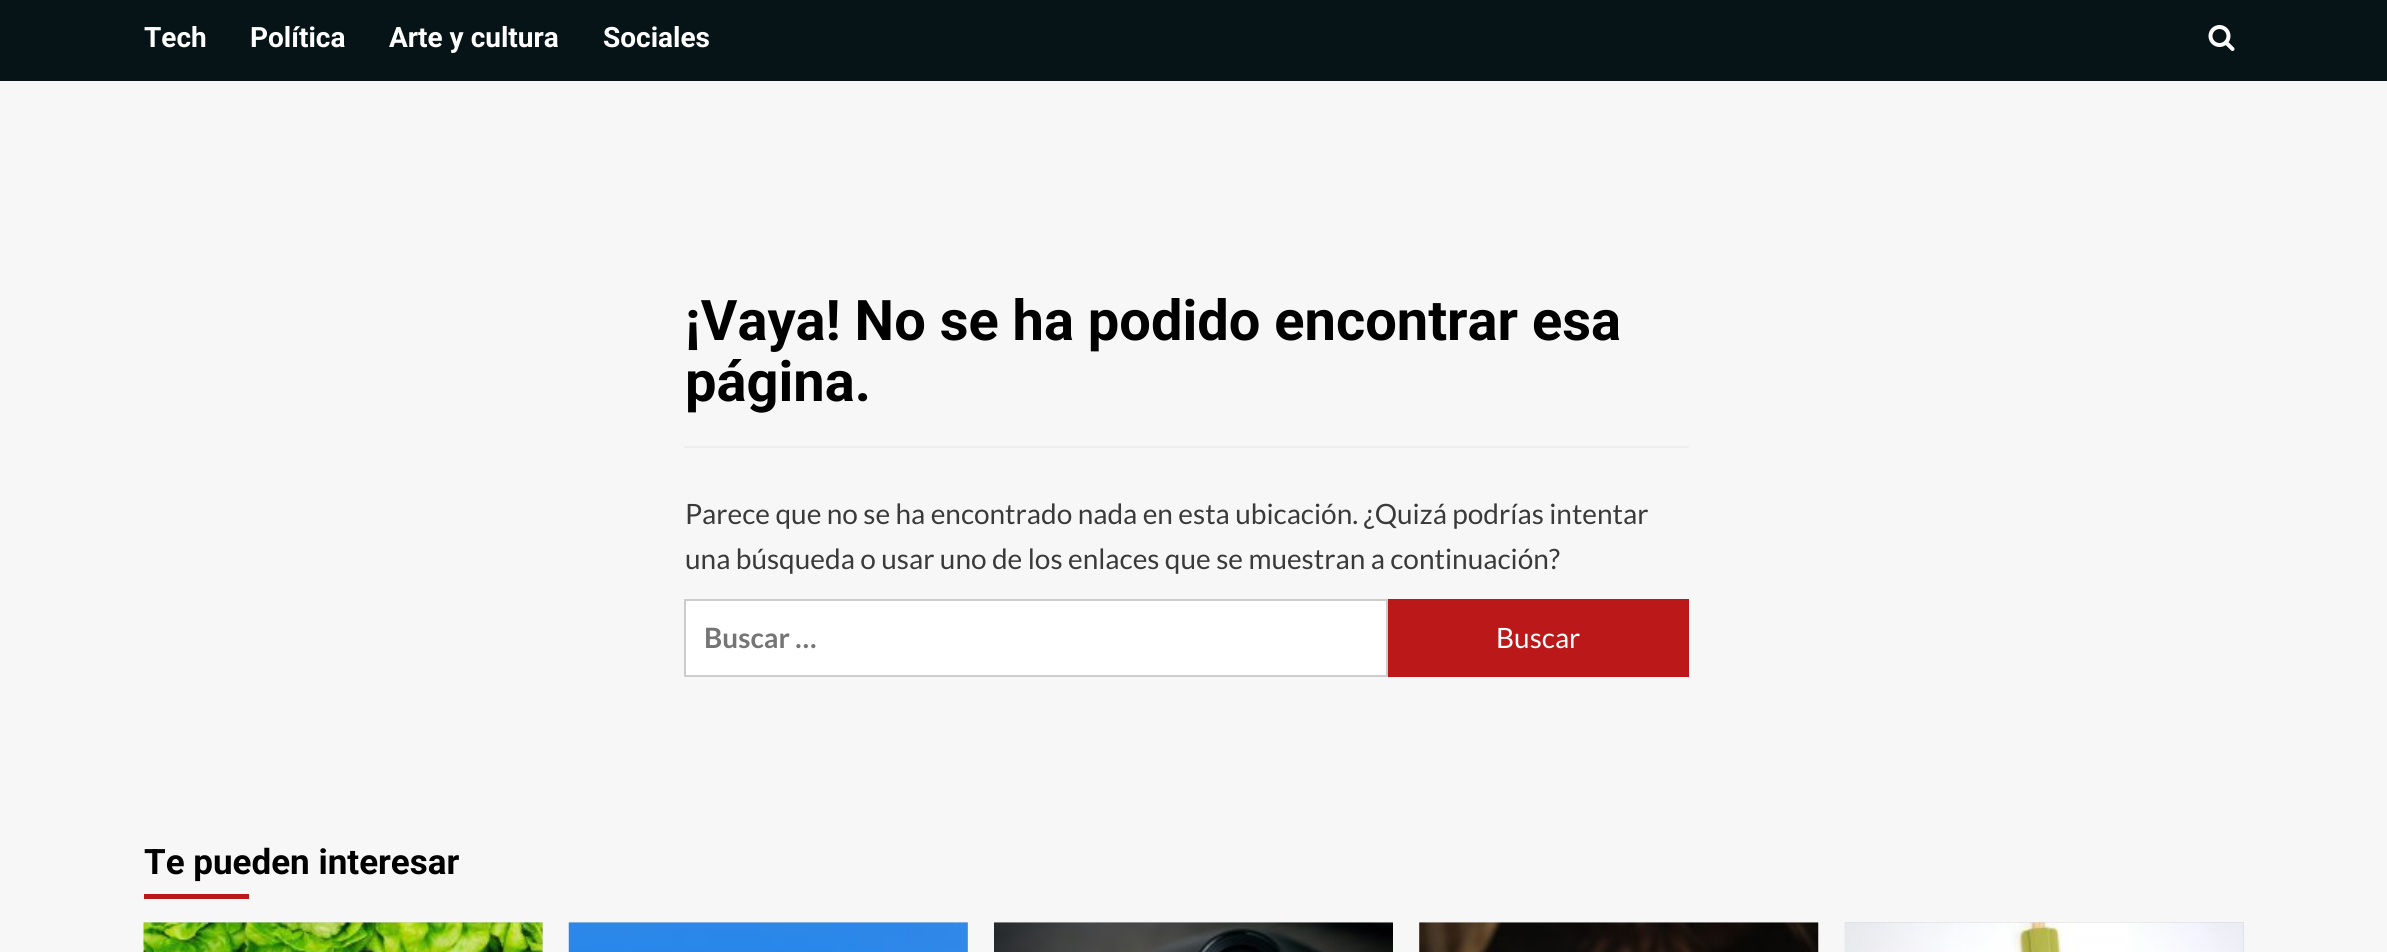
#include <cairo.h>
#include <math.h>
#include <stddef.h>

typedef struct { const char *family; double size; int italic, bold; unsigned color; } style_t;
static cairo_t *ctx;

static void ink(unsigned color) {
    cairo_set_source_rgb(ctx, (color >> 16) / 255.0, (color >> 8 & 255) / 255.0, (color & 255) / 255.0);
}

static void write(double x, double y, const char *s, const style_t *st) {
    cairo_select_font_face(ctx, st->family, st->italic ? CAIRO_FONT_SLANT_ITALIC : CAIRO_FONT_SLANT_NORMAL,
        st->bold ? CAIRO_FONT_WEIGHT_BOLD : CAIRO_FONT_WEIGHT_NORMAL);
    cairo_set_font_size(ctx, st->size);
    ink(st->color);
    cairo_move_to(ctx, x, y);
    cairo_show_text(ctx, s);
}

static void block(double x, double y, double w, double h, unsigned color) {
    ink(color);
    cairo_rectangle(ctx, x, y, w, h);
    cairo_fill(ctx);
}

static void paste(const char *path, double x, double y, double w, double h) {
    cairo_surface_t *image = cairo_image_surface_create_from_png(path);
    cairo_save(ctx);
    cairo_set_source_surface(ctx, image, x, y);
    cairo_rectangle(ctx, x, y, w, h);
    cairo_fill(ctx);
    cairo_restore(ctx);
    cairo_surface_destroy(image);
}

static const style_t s1 = {"Roboto", 28, 0, 1, 0xffffff};
static const style_t s2 = {"Roboto", 56, 0, 1, 0x000000};
static const style_t s3 = {"Lato", 28, 0, 0, 0x3a3a3a};
static const style_t s4 = {"Lato", 28, 0, 1, 0x757575};
static const style_t s5 = {"Lato", 28, 0, 0, 0xffffff};
static const style_t s6 = {"Roboto", 35, 0, 1, 0x000000};

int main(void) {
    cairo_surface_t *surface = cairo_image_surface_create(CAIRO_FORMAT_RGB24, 2387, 952);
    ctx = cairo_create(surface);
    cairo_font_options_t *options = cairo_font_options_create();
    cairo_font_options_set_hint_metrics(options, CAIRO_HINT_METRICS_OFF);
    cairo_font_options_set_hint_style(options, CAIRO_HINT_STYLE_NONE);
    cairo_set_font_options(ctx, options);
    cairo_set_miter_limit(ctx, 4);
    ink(0xf7f7f7);
    cairo_paint(ctx);
    block(0, 0, 2387, 81, 0x061417);
    write(144, 47, "Tech", &s1);
    write(250, 47, "Política", &s1);
    write(389, 47, "Arte y cultura", &s1);
    write(603, 47, "Sociales", &s1);
    paste("pic1.png", 2208, 25, 27, 26);
    block(684, 446, 1005, 2, 0xeeeeee);
    write(685, 340, "¡Vaya! No se ha podido encontrar esa", &s2);
    write(685, 401, "página.", &s2);
    write(685, 524, "Parece que no se ha encontrado nada en esta ubicación. ¿Quizá podrías intentar", &s3);
    write(685, 569, "una búsqueda o usar uno de los enlaces que se muestran a continuación?", &s3);
    ink(0xffffff);
    cairo_rectangle(ctx, 685, 600, 702, 76);
    cairo_fill_preserve(ctx);
    ink(0xcccccc);
    cairo_stroke(ctx);
    write(704, 648, "Buscar …", &s4);
    block(1388, 599, 301, 78, 0xbb1919);
    write(1496, 648, "Buscar", &s5);
    write(144, 874, "Te pueden interesar", &s6);
    block(144, 894, 105, 5, 0xbb1919);
    block(144, 922, 399, 30, 0xd8d8d8);
    paste("pic2.png", 143, 922, 400, 30);
    block(569, 922, 399, 30, 0xd8d8d8);
    paste("pic3.png", 568, 922, 400, 30);
    block(994, 922, 399, 1, 0xd8d8d8);
    paste("pic4.png", 994, 922, 399, 30);
    block(1419, 922, 399, 30, 0xd8d8d8);
    paste("pic5.png", 1419, 922, 400, 30);
    block(1845, 922, 399, 30, 0xd8d8d8);
    paste("pic6.png", 1844, 922, 400, 30);
    cairo_surface_write_to_png(surface, "screenshot.png");
    cairo_font_options_destroy(options);
    cairo_destroy(ctx);
    cairo_surface_destroy(surface);
    return 0;
}
